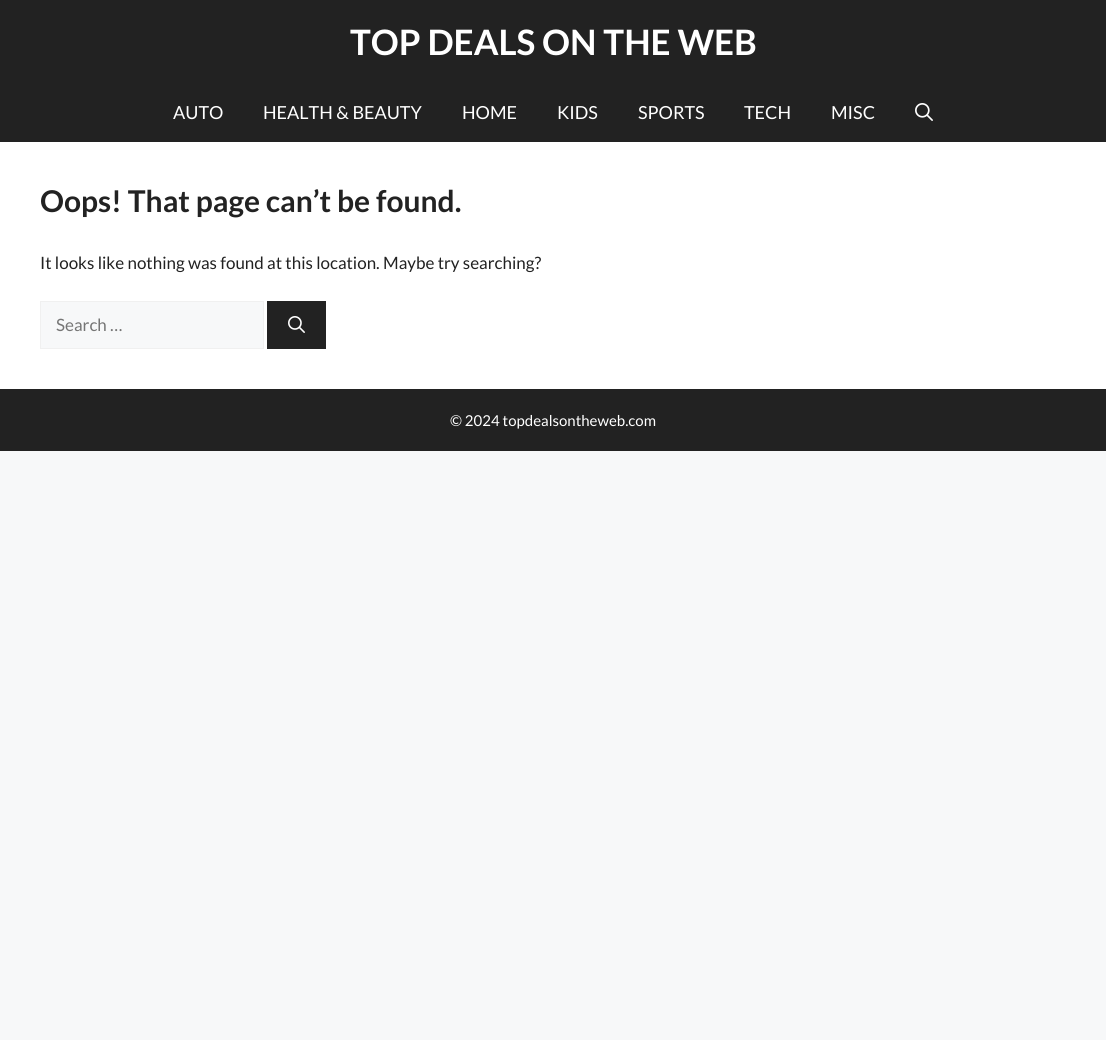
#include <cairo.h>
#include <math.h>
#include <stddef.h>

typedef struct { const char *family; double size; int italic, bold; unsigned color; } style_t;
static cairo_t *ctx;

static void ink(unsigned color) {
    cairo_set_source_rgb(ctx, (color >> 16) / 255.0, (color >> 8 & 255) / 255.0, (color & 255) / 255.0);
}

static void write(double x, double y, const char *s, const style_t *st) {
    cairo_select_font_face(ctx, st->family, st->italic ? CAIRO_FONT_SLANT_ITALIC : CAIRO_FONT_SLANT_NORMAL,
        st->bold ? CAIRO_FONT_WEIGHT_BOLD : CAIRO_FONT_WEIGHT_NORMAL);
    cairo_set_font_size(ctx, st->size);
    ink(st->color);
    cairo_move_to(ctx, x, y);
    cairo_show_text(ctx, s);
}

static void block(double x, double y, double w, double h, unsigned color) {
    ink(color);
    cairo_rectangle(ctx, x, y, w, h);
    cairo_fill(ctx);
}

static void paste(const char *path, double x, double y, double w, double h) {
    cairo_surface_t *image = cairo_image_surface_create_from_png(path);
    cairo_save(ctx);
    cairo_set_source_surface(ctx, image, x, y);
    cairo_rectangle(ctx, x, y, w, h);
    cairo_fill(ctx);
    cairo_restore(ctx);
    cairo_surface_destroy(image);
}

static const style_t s1 = {"Lato", 35, 0, 1, 0xffffff};
static const style_t s2 = {"Lato", 18, 0, 0, 0xffffff};
static const style_t s3 = {"Lato", 30, 0, 1, 0x222222};
static const style_t s4 = {"Lato", 17, 0, 0, 0x222222};
static const style_t s5 = {"Lato", 17, 0, 0, 0x757575};
static const style_t s6 = {"Lato", 15, 0, 0, 0xffffff};

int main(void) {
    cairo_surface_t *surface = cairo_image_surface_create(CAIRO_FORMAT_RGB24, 1106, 1040);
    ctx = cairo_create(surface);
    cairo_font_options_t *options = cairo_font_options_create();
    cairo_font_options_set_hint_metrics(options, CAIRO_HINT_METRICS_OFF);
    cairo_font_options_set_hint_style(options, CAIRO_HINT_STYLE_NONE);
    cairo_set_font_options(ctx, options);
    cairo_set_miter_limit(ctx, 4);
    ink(0xf7f8f9);
    cairo_paint(ctx);
    block(0, 0, 1106, 142, 0x222222);
    write(350, 55, "TOP DEALS ON THE WEB", &s1);
    write(173, 119, "AUTO", &s2);
    write(263, 119, "HEALTH & BEAUTY", &s2);
    write(462, 119, "HOME", &s2);
    write(557, 119, "KIDS", &s2);
    write(638, 119, "SPORTS", &s2);
    write(744, 119, "TECH", &s2);
    write(831, 119, "MISC", &s2);
    paste("pic1.png", 915, 103, 18, 18);
    block(0, 142, 1106, 247, 0xffffff);
    write(40, 212, "Oops! That page can’t be found.", &s3);
    write(40, 269, "It looks like nothing was found at this location. Maybe try searching?", &s4);
    ink(0xf7f8f9);
    cairo_rectangle(ctx, 40.5, 301.5, 223, 47);
    cairo_fill_preserve(ctx);
    ink(0xf0f0f0);
    cairo_set_line_width(ctx, 1);
    cairo_stroke(ctx);
    write(56, 331, "Search …", &s5);
    block(267, 301, 59, 48, 0x222222);
    paste("pic2.png", 288, 316, 17, 17);
    block(0, 389, 1106, 62, 0x222222);
    write(450, 426, "© 2024 topdealsontheweb.com", &s6);
    cairo_surface_write_to_png(surface, "screenshot.png");
    cairo_font_options_destroy(options);
    cairo_destroy(ctx);
    cairo_surface_destroy(surface);
    return 0;
}
